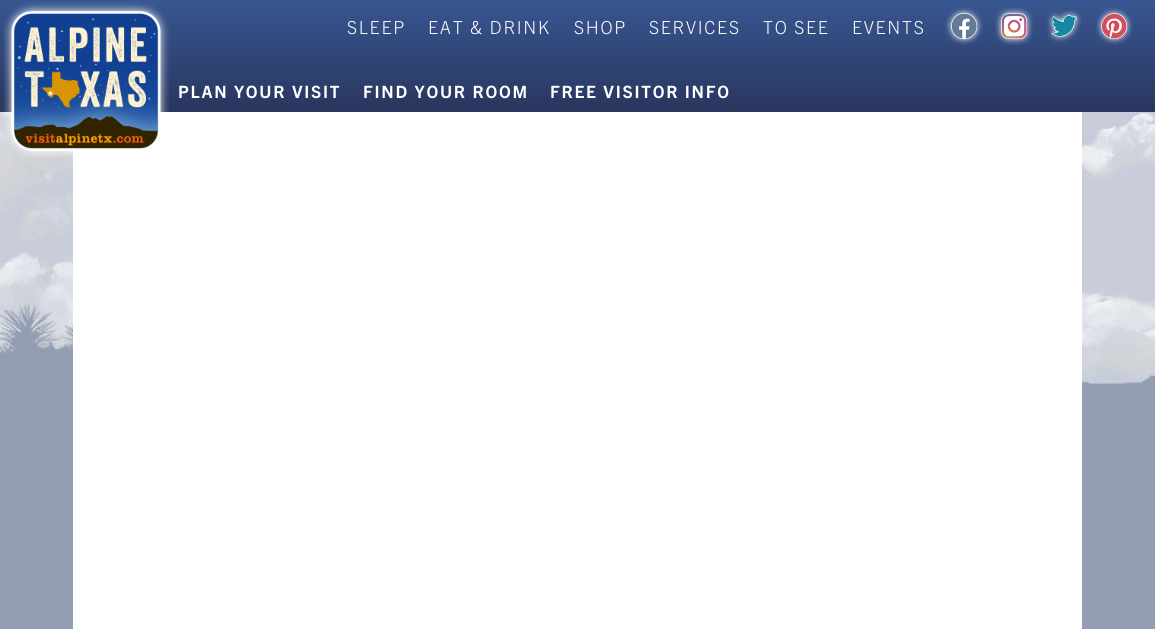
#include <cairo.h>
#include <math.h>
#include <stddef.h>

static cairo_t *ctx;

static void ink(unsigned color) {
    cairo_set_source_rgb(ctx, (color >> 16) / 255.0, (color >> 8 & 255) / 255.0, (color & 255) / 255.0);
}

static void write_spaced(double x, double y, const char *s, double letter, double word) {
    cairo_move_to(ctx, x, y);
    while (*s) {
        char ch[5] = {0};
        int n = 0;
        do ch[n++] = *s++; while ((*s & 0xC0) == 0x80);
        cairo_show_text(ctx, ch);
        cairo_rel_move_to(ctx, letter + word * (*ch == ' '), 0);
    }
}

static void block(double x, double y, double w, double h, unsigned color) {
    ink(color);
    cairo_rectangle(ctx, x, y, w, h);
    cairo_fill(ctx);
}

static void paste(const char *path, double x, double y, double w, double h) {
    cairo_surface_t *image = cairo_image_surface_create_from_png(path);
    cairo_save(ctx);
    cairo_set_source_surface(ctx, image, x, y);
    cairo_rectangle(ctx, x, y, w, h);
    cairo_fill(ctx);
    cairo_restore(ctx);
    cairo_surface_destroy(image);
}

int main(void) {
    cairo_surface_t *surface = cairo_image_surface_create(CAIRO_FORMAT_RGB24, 1155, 629);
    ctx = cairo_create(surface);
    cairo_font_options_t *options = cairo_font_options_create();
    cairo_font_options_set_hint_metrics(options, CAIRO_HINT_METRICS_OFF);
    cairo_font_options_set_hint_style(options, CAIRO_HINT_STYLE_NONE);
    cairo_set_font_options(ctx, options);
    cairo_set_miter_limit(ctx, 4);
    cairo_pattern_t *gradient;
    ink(0x939eb3);
    cairo_paint(ctx);
    paste("pic1.png", 0, 112, 1155, 273);
    gradient = cairo_pattern_create_linear(578, 0, 578, 112);
    cairo_pattern_add_color_stop_rgba(gradient, 0, 0.22, 0.337, 0.569, 1);
    cairo_pattern_add_color_stop_rgba(gradient, 1, 0.161, 0.212, 0.369, 1);
    cairo_set_source(ctx, gradient);
    cairo_pattern_destroy(gradient);
    cairo_rectangle(ctx, 0, 0, 1155, 112);
    cairo_fill(ctx);
    block(73, 112, 1009, 517, 0xffffff);
    paste("pic2.png", 3, 2, 166, 155);
    cairo_select_font_face(ctx, "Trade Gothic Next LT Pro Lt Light", CAIRO_FONT_SLANT_NORMAL, CAIRO_FONT_WEIGHT_NORMAL);
    cairo_set_font_size(ctx, 18);
    write_spaced(347, 34, "SLEEP", 1.75, 0);
    write_spaced(428, 34, "EAT & DRINK", 1.75, 0);
    write_spaced(574, 34, "SHOP", 1.75, 0);
    write_spaced(649, 34, "SERVICES", 1.75, 0);
    write_spaced(763, 34, "TO SEE", 1.75, 0);
    write_spaced(852, 34, "EVENTS", 1.75, 0);
    paste("pic3.png", 945, 7, 38, 38);
    paste("pic4.png", 995, 7, 38, 38);
    paste("pic5.png", 1047, 10, 35, 33);
    paste("pic6.png", 1095, 7, 38, 38);
    cairo_select_font_face(ctx, "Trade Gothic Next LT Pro", CAIRO_FONT_SLANT_NORMAL, CAIRO_FONT_WEIGHT_BOLD);
    cairo_set_font_size(ctx, 17);
    write_spaced(178, 98, "PLAN YOUR VISIT", 1.75, 0);
    write_spaced(363, 98, "FIND YOUR ROOM", 1.75, 0);
    write_spaced(550, 98, "FREE VISITOR INFO", 1.75, 0);
    cairo_surface_write_to_png(surface, "screenshot.png");
    cairo_font_options_destroy(options);
    cairo_destroy(ctx);
    cairo_surface_destroy(surface);
    return 0;
}
